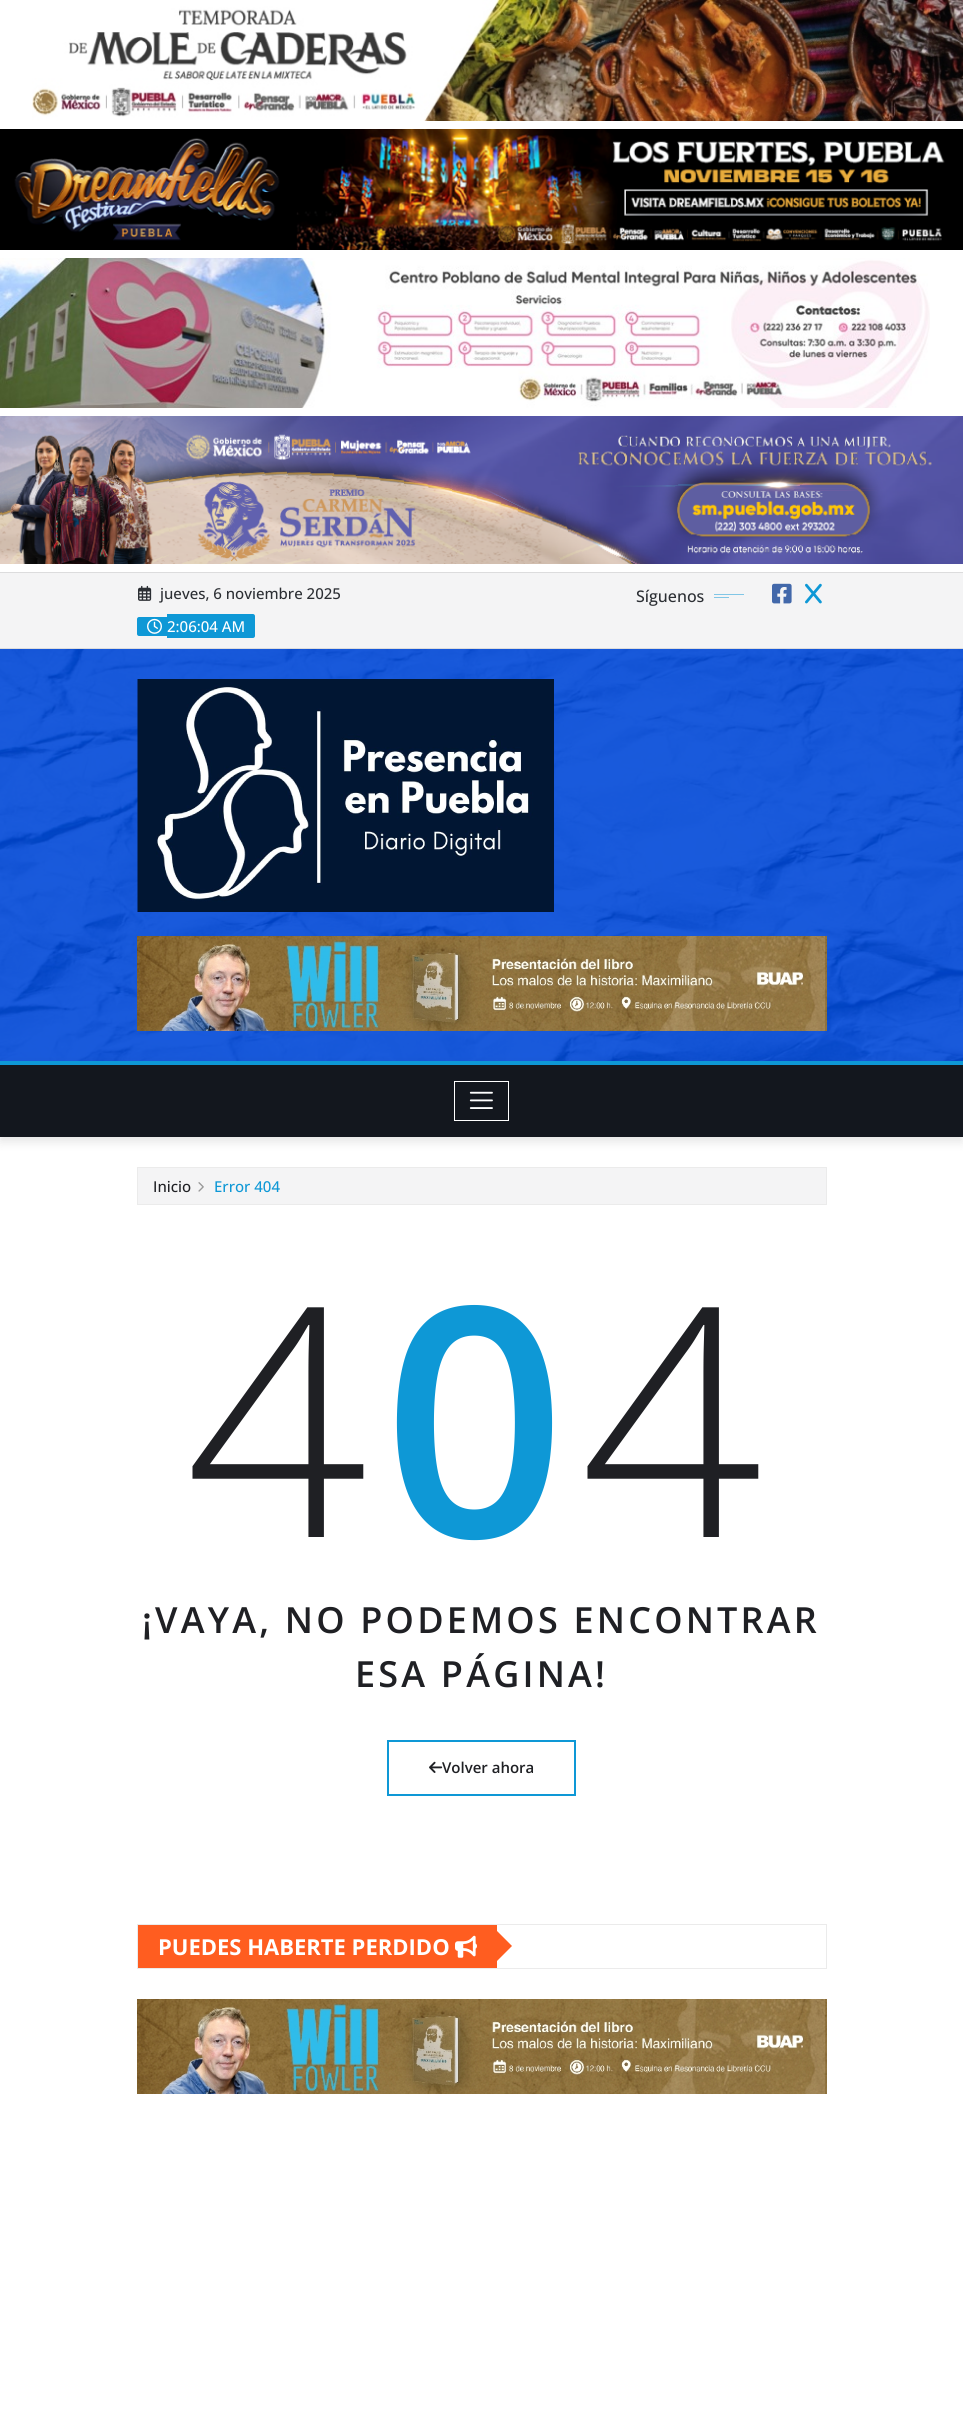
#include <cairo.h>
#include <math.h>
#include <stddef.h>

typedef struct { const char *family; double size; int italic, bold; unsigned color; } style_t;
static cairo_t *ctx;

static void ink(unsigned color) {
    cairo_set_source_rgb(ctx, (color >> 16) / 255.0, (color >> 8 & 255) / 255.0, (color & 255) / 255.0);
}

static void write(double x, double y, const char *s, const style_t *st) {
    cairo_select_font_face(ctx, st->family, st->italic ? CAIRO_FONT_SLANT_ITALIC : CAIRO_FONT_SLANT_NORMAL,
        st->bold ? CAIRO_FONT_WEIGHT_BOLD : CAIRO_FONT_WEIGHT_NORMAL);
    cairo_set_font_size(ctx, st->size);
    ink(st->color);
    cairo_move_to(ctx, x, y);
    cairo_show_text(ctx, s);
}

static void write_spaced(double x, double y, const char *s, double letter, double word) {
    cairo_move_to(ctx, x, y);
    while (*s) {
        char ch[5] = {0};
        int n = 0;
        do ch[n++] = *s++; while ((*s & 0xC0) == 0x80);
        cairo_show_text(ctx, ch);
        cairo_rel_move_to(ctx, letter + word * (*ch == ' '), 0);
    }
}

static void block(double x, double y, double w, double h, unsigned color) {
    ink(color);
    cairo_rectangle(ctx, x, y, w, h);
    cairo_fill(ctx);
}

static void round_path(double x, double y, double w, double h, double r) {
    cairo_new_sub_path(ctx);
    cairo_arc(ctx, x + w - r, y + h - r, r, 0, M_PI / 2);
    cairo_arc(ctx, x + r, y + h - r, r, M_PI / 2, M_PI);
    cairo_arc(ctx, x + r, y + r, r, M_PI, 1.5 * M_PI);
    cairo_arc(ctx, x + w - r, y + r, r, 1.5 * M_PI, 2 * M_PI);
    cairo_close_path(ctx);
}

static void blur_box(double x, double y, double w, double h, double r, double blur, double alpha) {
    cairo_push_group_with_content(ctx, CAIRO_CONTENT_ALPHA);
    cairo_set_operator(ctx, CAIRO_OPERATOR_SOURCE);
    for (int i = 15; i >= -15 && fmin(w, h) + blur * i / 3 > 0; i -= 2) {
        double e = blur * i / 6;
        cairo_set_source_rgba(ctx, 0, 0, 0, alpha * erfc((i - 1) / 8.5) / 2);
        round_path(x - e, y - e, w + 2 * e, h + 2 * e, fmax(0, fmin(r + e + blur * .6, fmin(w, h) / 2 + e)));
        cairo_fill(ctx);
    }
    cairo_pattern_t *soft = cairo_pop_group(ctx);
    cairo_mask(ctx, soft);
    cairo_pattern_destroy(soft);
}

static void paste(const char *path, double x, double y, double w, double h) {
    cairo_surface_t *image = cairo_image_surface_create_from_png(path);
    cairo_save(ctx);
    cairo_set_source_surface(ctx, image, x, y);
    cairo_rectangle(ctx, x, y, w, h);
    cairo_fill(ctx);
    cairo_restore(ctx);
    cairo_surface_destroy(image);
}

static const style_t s1 = {"Open Sans Medium", 15, 0, 0, 0x2c2f34};
static const style_t s2 = {"Open Sans Medium", 15, 0, 0, 0xffffff};
static const style_t s3 = {"Open Sans Medium", 16, 0, 0, 0x2c2f34};
static const style_t s4 = {"Open Sans Medium", 15, 0, 0, 0x1f2024};
static const style_t s5 = {"Open Sans Medium", 15, 0, 0, 0x0e98d6};
static const style_t s6 = {"Open Sans SemiBold", 15, 0, 0, 0x1f2024};
static const style_t s7 = {"Open Sans", 22, 0, 1, 0xffffff};

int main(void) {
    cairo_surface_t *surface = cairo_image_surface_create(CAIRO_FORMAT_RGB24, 963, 2409);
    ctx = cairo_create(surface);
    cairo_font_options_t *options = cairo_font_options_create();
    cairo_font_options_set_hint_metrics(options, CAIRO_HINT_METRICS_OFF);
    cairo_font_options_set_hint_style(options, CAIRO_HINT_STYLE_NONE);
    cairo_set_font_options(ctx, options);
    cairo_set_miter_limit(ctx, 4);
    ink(0xffffff);
    cairo_paint(ctx);
    paste("pic1.png", 32, 0, 931, 121);
    paste("pic2.png", 0, 129, 963, 121);
    paste("pic3.png", 0, 258, 930, 150);
    paste("pic4.png", 0, 416, 963, 148);
    block(0, 573, 963, 75, 0xf4f4f5);
    block(0, 572, 963, 1, 0xdcdcdd);
    block(0, 648, 963, 1, 0xdcdcdd);
    paste("pic5.png", 138, 585, 14, 16);
    write(160, 599, "jueves, 6 noviembre 2025", &s1);
    ink(0x0e98d6);
    cairo_new_path(ctx);
    cairo_move_to(ctx, 139, 617);
    cairo_line_to(ctx, 167, 617);
    cairo_line_to(ctx, 167, 636);
    cairo_line_to(ctx, 139, 636);
    cairo_curve_to(ctx, 138, 636, 137, 635, 137, 634);
    cairo_line_to(ctx, 137, 619);
    cairo_curve_to(ctx, 137, 618, 138, 617, 139, 617);
    cairo_close_path(ctx);
    cairo_fill(ctx);
    paste("pic6.png", 147, 618, 15, 16);
    cairo_new_path(ctx);
    cairo_move_to(ctx, 167, 614);
    cairo_line_to(ctx, 253, 614);
    cairo_curve_to(ctx, 254, 614, 255, 615, 255, 616);
    cairo_line_to(ctx, 255, 636);
    cairo_curve_to(ctx, 255, 637, 254, 638, 253, 638);
    cairo_line_to(ctx, 167, 638);
    cairo_close_path(ctx);
    cairo_fill(ctx);
    write(167, 632, "2:06:04 AM", &s2);
    write(636, 602, "Síguenos", &s3);
    block(714, 594, 30, 1, 0x81c6e6);
    block(714, 597, 15, 1, 0x81c6e6);
    paste("pic7.png", 772, 583, 20, 21);
    paste("pic8.png", 805, 583, 17, 21);
    paste("pic9.png", 0, 649, 963, 412);
    paste("pic10.png", 137, 679, 417, 233);
    paste("pic11.png", 137, 936, 690, 95);
    ink(0x000000);
    blur_box(0, 1066, 963, 76, 0, 5, 0.1);
    block(0, 1065, 963, 72, 0x13171e);
    block(0, 1061, 963, 4, 0x0e98d6);
    cairo_rectangle(ctx, 454.5, 1081.5, 54, 39);
    ink(0xffffff);
    cairo_set_line_width(ctx, 1);
    cairo_stroke(ctx);
    paste("pic12.png", 469, 1091, 24, 18);
    ink(0xf4f4f5);
    cairo_rectangle(ctx, 137.5, 1167.5, 689, 37);
    cairo_fill_preserve(ctx);
    ink(0xebebeb);
    cairo_stroke(ctx);
    write(153, 1192, "Inicio", &s4);
    paste("pic13.png", 198, 1182, 6, 10);
    write(214, 1192, "Error 404", &s5);
    cairo_select_font_face(ctx, "Open Sans Light", CAIRO_FONT_SLANT_NORMAL, CAIRO_FONT_WEIGHT_NORMAL);
    cairo_set_font_size(ctx, 320);
    ink(0x1f2024);
    write_spaced(185, 1537, "4", 15, 0);
    cairo_select_font_face(ctx, "Open Sans SemiBold", CAIRO_FONT_SLANT_NORMAL, CAIRO_FONT_WEIGHT_NORMAL);
    ink(0x0e98d6);
    write_spaced(383, 1537, "0", 15, 0);
    cairo_select_font_face(ctx, "Open Sans Light", CAIRO_FONT_SLANT_NORMAL, CAIRO_FONT_WEIGHT_NORMAL);
    ink(0x1f2024);
    write_spaced(580, 1537, "4", 15, 0);
    cairo_select_font_face(ctx, "Open Sans SemiBold", CAIRO_FONT_SLANT_NORMAL, CAIRO_FONT_WEIGHT_NORMAL);
    cairo_set_font_size(ctx, 36);
    write_spaced(142, 1633, "¡VAYA, NO PODEMOS ENCONTRAR", 3.2, 0);
    write_spaced(355, 1687, "ESA PÁGINA!", 3.2, 0);
    cairo_rectangle(ctx, 388, 1741, 187, 54);
    ink(0x0e98d6);
    cairo_set_line_width(ctx, 2);
    cairo_stroke(ctx);
    paste("pic14.png", 429, 1761, 14, 12);
    write(442, 1773, "Volver ahora", &s6);
    cairo_rectangle(ctx, 137.5, 1924.5, 689, 44);
    ink(0xebebeb);
    cairo_set_line_width(ctx, 1);
    cairo_stroke(ctx);
    block(138, 1925, 359, 43, 0xff5d20);
    write(158, 1955, "PUEDES HABERTE PERDIDO", &s7);
    paste("pic15.png", 455, 1935, 22, 23);
    ink(0xff5d20);
    cairo_new_path(ctx);
    cairo_move_to(ctx, 497, 1961);
    cairo_line_to(ctx, 497, 1931);
    cairo_line_to(ctx, 512, 1946);
    cairo_close_path(ctx);
    cairo_fill(ctx);
    paste("pic11.png", 137, 1999, 690, 95);
    cairo_surface_write_to_png(surface, "screenshot.png");
    cairo_font_options_destroy(options);
    cairo_destroy(ctx);
    cairo_surface_destroy(surface);
    return 0;
}
